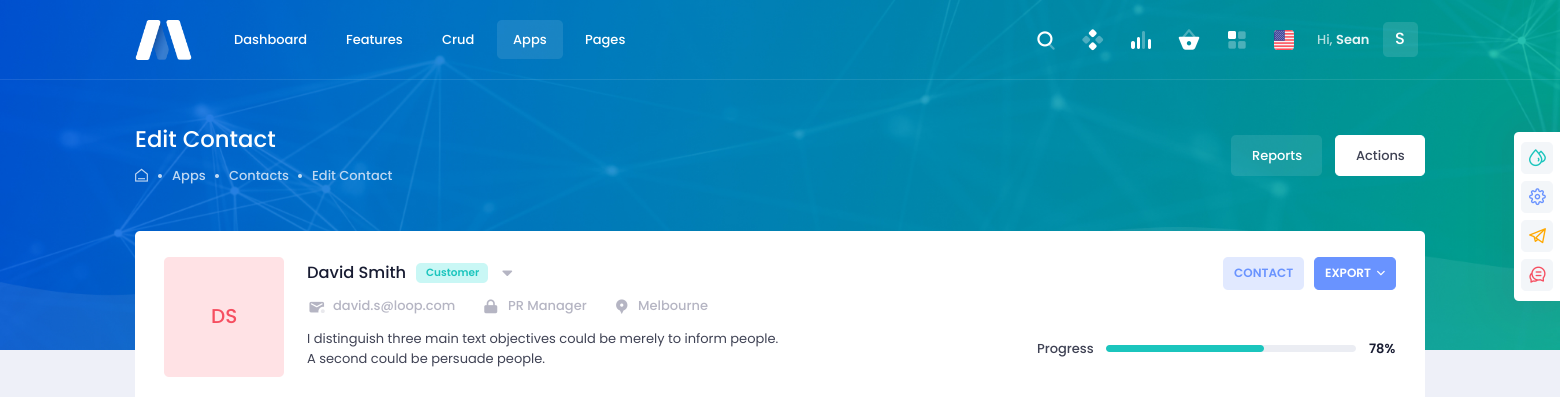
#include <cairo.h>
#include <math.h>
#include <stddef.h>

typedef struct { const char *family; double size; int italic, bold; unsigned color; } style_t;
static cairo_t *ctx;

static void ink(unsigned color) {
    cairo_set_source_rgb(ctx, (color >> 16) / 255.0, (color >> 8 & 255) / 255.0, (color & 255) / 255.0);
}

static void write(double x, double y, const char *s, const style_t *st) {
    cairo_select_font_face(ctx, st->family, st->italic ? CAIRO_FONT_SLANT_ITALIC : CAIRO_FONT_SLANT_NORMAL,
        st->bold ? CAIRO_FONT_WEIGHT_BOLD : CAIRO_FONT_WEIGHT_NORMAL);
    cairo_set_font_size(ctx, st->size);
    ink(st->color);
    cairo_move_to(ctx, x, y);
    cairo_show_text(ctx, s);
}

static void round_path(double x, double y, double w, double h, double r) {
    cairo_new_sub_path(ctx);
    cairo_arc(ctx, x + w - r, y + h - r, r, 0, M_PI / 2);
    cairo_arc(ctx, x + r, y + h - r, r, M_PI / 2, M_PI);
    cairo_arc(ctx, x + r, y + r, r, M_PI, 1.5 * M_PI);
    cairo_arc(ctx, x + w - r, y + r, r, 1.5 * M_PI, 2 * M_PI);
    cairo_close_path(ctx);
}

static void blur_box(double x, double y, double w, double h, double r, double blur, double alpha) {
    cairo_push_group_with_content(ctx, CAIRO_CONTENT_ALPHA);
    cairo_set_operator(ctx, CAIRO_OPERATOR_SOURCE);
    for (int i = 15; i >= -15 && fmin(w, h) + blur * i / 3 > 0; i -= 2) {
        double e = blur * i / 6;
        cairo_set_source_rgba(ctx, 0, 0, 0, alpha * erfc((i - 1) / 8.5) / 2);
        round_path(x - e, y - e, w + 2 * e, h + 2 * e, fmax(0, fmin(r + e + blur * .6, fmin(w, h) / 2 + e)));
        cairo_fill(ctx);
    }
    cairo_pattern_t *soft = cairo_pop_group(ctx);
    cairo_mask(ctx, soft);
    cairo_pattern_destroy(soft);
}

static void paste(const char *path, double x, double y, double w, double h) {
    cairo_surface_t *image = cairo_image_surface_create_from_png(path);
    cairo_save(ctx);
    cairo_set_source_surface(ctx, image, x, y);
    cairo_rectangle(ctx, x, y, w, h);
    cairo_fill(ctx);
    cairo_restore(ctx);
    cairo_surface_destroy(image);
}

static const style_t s1 = {"Poppins Medium", 13, 0, 0, 0xffffff};
static const style_t s2 = {"Poppins Medium", 13, 0, 0, 0xb3dee0};
static const style_t s3 = {"Poppins SemiBold", 13, 0, 0, 0xe6f4f5};
static const style_t s4 = {"Poppins Medium", 16.25, 0, 0, 0xffffff};
static const style_t s5 = {"Poppins Medium", 22.75, 0, 0, 0xffffff};
static const style_t s6 = {"Poppins Medium", 13, 0, 0, 0xbfd8f2};
static const style_t s7 = {"Poppins Medium", 13, 0, 0, 0x3f4254};
static const style_t s8 = {"Poppins Medium", 20, 0, 0, 0xf64e60};
static const style_t s9 = {"Poppins Medium", 16.25, 0, 0, 0x181c32};
static const style_t s10 = {"Poppins SemiBold", 10.5, 0, 0, 0x1bc5bd};
static const style_t s11 = {"Poppins Medium", 13, 0, 0, 0xb5b5c3};
static const style_t s12 = {"Poppins SemiBold", 12, 0, 0, 0x6993ff};
static const style_t s13 = {"Poppins SemiBold", 12, 0, 0, 0xffffff};
static const style_t s14 = {"Poppins", 13, 0, 0, 0x3f4254};
static const style_t s15 = {"Poppins SemiBold", 13, 0, 0, 0x181c32};

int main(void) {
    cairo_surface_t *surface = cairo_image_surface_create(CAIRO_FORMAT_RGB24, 1560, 397);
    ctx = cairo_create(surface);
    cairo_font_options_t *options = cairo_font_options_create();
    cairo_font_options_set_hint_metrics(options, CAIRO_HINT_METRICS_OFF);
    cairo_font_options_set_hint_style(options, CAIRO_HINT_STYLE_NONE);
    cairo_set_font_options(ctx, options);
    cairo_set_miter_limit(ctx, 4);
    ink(0xeef0f8);
    cairo_paint(ctx);
    paste("pic1.png", 0, 0, 1560, 350);
    cairo_set_source_rgba(ctx, 1, 1, 1, 0.1);
    cairo_rectangle(ctx, 0, 79, 1560, 1);
    cairo_fill(ctx);
    paste("pic2.png", 135, 20, 57, 40);
    write(234, 44, "Dashboard", &s1);
    write(346, 44, "Features", &s1);
    write(442, 44, "Crud", &s1);
    cairo_set_source_rgba(ctx, 1, 1, 1, 0.1);
    round_path(497, 20, 66, 39, 5);
    cairo_fill(ctx);
    write(513, 44, "Apps", &s1);
    write(585, 44, "Pages", &s1);
    paste("pic3.png", 1037, 31, 18, 19);
    paste("pic4.png", 1082, 29, 22, 22);
    round_path(1131, 41, 4, 8, 2);
    cairo_fill(ctx);
    round_path(1137, 37, 3, 12, 1.5);
    cairo_fill(ctx);
    cairo_set_source_rgba(ctx, 1, 1, 1, 0.3);
    round_path(1142, 31, 3, 18, 1.5);
    cairo_fill(ctx);
    ink(0xffffff);
    round_path(1148, 39, 3, 10, 1.5);
    cairo_fill(ctx);
    paste("pic5.png", 1178, 29, 22, 21);
    paste("pic6.png", 1228, 31, 18, 18);
    paste("pic7.png", 1274, 30, 20, 20);
    write(1317, 44, "Hi,", &s2);
    write(1336, 44, "Sean", &s3);
    cairo_set_source_rgba(ctx, 1, 1, 1, 0.12);
    round_path(1383, 22, 35, 35, 5);
    cairo_fill(ctx);
    write(1395, 44, "S", &s4);
    write(135, 147, "Edit Contact", &s5);
    paste("pic8.png", 135, 168, 13, 14);
    cairo_set_source_rgba(ctx, 1, 1, 1, 0.75);
    cairo_arc(ctx, 160, 176, 2, 0, 2 * M_PI);
    cairo_fill(ctx);
    write(172, 180, "Apps", &s6);
    cairo_set_source_rgba(ctx, 1, 1, 1, 0.75);
    cairo_new_path(ctx);
    cairo_arc(ctx, 217, 176, 2, 0, 2 * M_PI);
    cairo_fill(ctx);
    write(229, 180, "Contacts", &s6);
    cairo_set_source_rgba(ctx, 1, 1, 1, 0.75);
    cairo_new_path(ctx);
    cairo_arc(ctx, 300, 176, 2, 0, 2 * M_PI);
    cairo_fill(ctx);
    write(312, 180, "Edit Contact", &s6);
    cairo_set_source_rgba(ctx, 1, 1, 1, 0.1);
    round_path(1231, 135, 91, 41, 5);
    cairo_fill(ctx);
    write(1252, 160, "Reports", &s1);
    round_path(1335.5, 135.5, 89, 40, 4.5);
    cairo_fill_preserve(ctx);
    cairo_set_line_width(ctx, 1);
    cairo_stroke(ctx);
    write(1356, 160, "Actions", &s7);
    ink(0xffffff);
    round_path(135, 231, 1290, 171, 5);
    cairo_fill(ctx);
    ink(0xffe2e5);
    round_path(164, 257, 120, 120, 5);
    cairo_fill(ctx);
    write(211, 323, "DS", &s8);
    write(307, 278, "David Smith", &s9);
    ink(0xc9f7f5);
    round_path(416, 263, 72, 20, 5);
    cairo_fill(ctx);
    write(426, 276, "Customer", &s10);
    paste("pic9.png", 502, 270, 11, 6);
    paste("pic10.png", 309, 301, 16, 12);
    write(333, 310, "david.s@loop.com", &s11);
    paste("pic11.png", 484, 299, 14, 15);
    write(508, 310, "PR Manager", &s11);
    paste("pic12.png", 616, 299, 12, 15);
    write(638, 310, "Melbourne", &s11);
    ink(0xe1e9ff);
    round_path(1223, 257, 81, 33, 5);
    cairo_fill(ctx);
    write(1234, 277, "CONTACT", &s12);
    round_path(1314.5, 257.5, 81, 32, 4.5);
    cairo_fill_preserve(ctx);
    cairo_stroke(ctx);
    write(1325, 277, "EXPORT", &s13);
    paste("pic13.png", 1377, 270, 8, 6);
    write(307, 343, "I distinguish three main text objectives could be merely to inform people.", &s14);
    write(307, 363, "A second could be persuade people.", &s14);
    write(1037, 353, "Progress", &s7);
    ink(0xebedf3);
    round_path(1106, 345, 250, 7, 3.5);
    cairo_fill(ctx);
    ink(0x1bc5bd);
    round_path(1106, 345, 158, 7, 3.5);
    cairo_fill(ctx);
    write(1369, 353, "78%", &s15);
    ink(0x523f69);
    blur_box(1514, 132, 46, 169, 5, 25, 0.15);
    ink(0xffffff);
    cairo_new_path(ctx);
    cairo_move_to(ctx, 1519, 132);
    cairo_line_to(ctx, 1560, 132);
    cairo_line_to(ctx, 1560, 301);
    cairo_line_to(ctx, 1519, 301);
    cairo_curve_to(ctx, 1516, 301, 1514, 299, 1514, 296);
    cairo_line_to(ctx, 1514, 137);
    cairo_curve_to(ctx, 1514, 134, 1516, 132, 1519, 132);
    cairo_close_path(ctx);
    cairo_fill(ctx);
    ink(0xf3f6f9);
    round_path(1521.5, 142.5, 31, 31, 4.5);
    cairo_fill_preserve(ctx);
    cairo_stroke(ctx);
    paste("pic14.png", 1529, 149, 17, 18);
    round_path(1521.5, 181.5, 31, 31, 4.5);
    cairo_fill_preserve(ctx);
    cairo_stroke(ctx);
    paste("pic15.png", 1529, 188, 17, 18);
    round_path(1521.5, 220.5, 31, 31, 4.5);
    cairo_fill_preserve(ctx);
    cairo_stroke(ctx);
    paste("pic16.png", 1529, 228, 17, 16);
    round_path(1521.5, 259.5, 31, 31, 4.5);
    cairo_fill_preserve(ctx);
    cairo_stroke(ctx);
    paste("pic17.png", 1529, 266, 17, 17);
    cairo_surface_write_to_png(surface, "screenshot.png");
    cairo_font_options_destroy(options);
    cairo_destroy(ctx);
    cairo_surface_destroy(surface);
    return 0;
}
